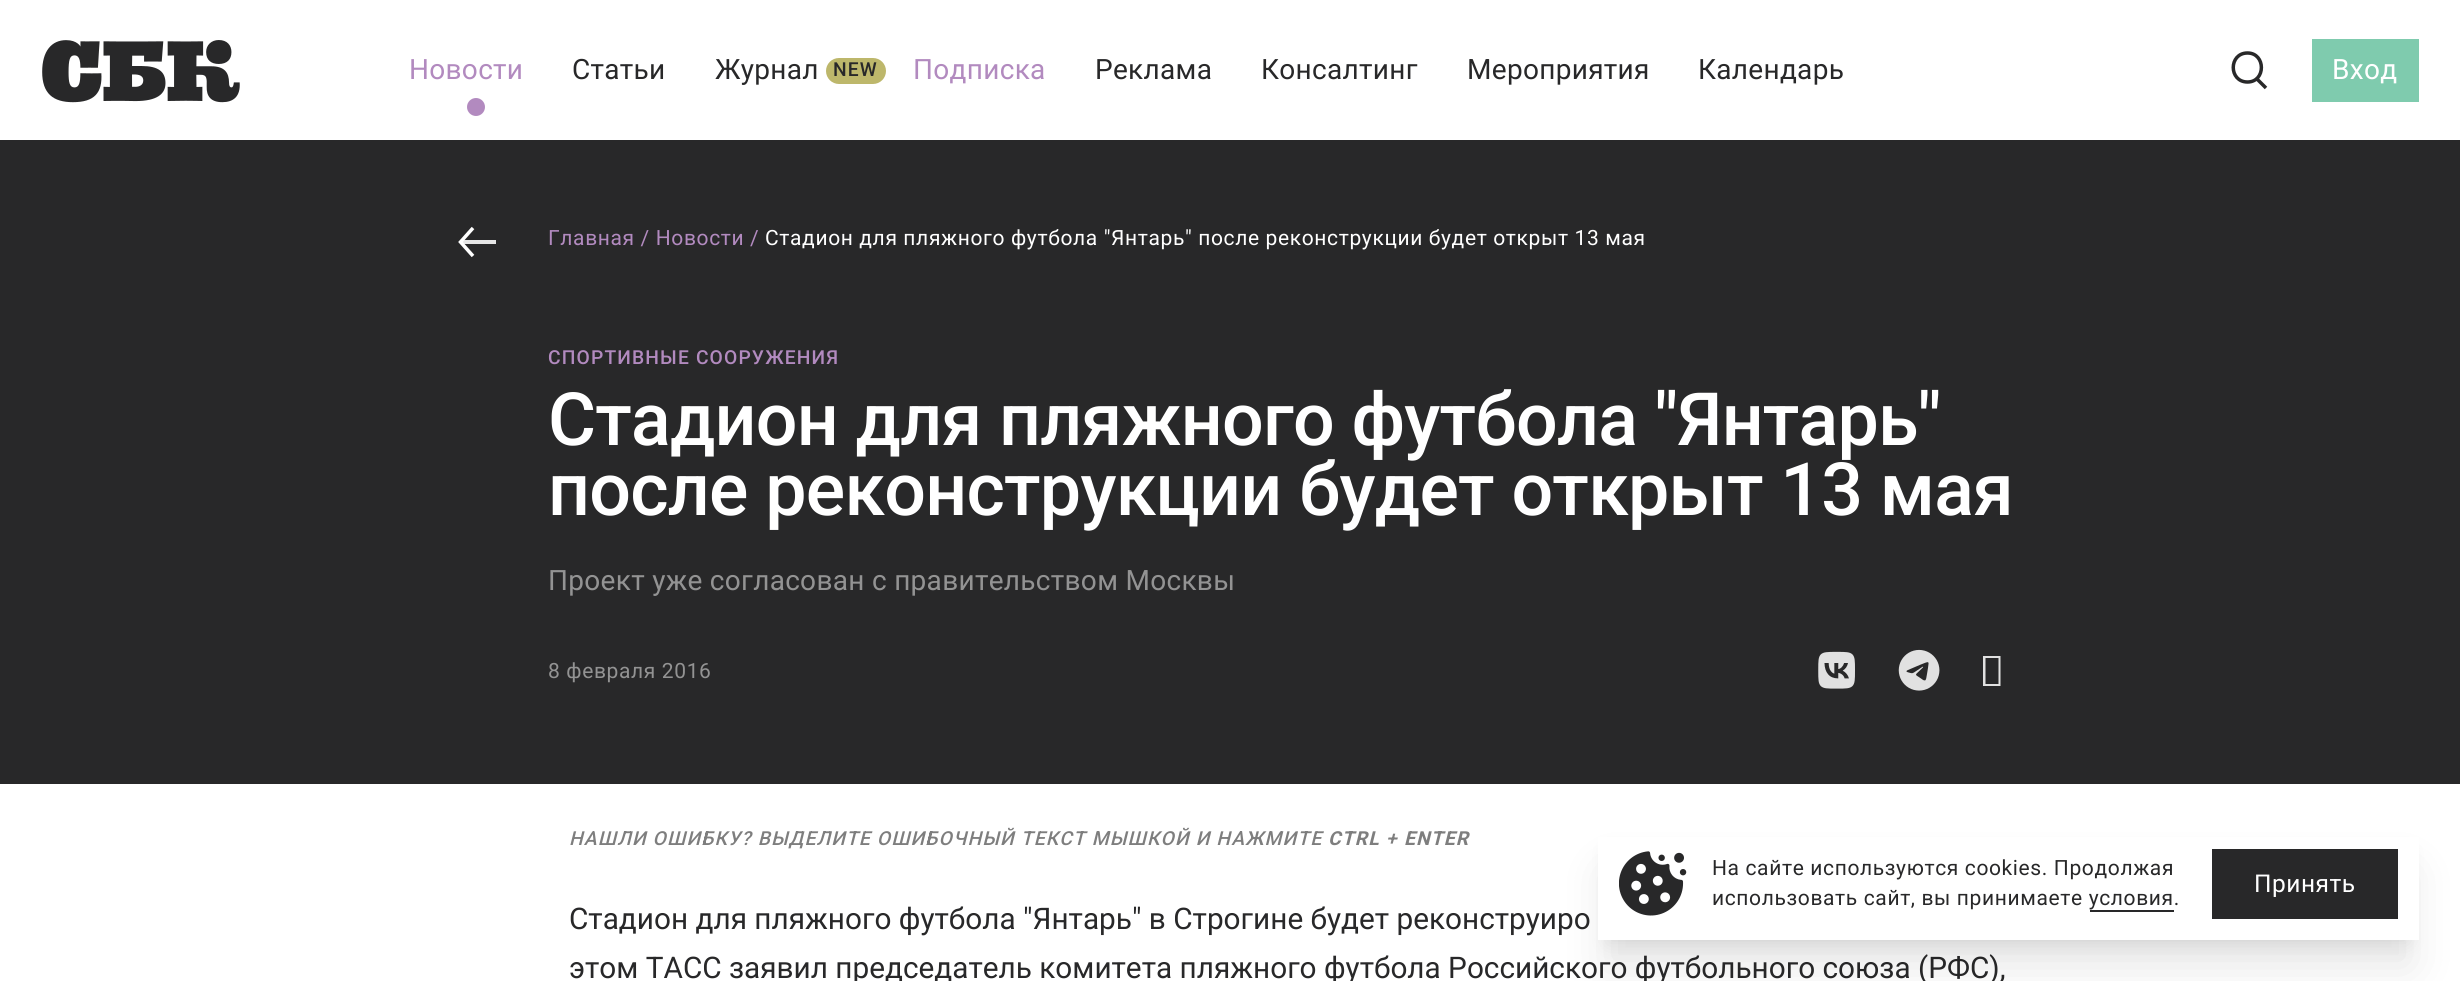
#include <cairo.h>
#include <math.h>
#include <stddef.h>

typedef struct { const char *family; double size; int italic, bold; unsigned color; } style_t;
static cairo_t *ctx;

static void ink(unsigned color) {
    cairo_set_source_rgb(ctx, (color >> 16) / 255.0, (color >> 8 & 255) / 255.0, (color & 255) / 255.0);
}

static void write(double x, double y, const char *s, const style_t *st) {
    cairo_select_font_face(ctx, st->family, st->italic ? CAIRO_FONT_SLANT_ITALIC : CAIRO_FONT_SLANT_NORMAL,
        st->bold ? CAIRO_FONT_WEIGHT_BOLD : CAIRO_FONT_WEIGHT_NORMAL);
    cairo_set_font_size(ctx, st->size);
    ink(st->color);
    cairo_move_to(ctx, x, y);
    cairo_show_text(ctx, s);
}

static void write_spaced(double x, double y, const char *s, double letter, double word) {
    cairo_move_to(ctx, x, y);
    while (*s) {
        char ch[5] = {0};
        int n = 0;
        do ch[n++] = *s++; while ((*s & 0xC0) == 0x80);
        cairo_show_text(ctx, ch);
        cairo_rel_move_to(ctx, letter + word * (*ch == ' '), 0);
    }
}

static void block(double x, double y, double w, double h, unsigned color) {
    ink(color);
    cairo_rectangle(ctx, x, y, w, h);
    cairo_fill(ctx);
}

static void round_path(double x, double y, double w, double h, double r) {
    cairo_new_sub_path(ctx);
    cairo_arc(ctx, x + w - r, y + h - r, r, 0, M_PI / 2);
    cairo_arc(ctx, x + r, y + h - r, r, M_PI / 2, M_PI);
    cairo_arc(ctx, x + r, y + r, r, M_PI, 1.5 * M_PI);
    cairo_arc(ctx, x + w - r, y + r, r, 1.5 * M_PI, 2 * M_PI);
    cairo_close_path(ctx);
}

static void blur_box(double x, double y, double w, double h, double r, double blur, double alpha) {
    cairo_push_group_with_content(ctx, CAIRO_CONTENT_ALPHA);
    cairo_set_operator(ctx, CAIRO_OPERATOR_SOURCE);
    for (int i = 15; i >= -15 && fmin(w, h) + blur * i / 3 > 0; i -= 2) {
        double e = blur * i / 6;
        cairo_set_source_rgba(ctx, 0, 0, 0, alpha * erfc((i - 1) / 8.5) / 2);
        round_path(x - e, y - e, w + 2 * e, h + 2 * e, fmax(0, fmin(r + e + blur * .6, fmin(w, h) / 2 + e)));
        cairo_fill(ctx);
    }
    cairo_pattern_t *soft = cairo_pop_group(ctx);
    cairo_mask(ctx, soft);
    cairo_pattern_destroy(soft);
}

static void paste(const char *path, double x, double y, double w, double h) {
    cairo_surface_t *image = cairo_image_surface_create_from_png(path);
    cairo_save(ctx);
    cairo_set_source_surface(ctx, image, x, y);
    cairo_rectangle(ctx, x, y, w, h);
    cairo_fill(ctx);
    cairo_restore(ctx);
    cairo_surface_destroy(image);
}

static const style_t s1 = {"Roboto", 29.75, 0, 0, 0x282829};

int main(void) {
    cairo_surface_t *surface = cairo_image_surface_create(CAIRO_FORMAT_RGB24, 2460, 981);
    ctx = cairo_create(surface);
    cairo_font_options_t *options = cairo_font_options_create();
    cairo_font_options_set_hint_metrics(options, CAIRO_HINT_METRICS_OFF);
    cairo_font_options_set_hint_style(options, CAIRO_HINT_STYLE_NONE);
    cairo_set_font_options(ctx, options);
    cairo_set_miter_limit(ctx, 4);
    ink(0xffffff);
    cairo_paint(ctx);
    paste("pic1.png", 42, 40, 198, 63);
    cairo_select_font_face(ctx, "Roboto", CAIRO_FONT_SLANT_NORMAL, CAIRO_FONT_WEIGHT_NORMAL);
    cairo_set_font_size(ctx, 28);
    ink(0xb28abf);
    write_spaced(409, 79, "Новости", 0.3, 0);
    cairo_new_path(ctx);
    cairo_arc(ctx, 476, 107, 9, 0, 2 * M_PI);
    cairo_fill(ctx);
    ink(0x282829);
    write_spaced(572, 79, "Статьи", 0.3, 0);
    write_spaced(715, 79, "Журнал", 0.3, 0);
    ink(0xbdb76b);
    round_path(826, 58, 60, 26, 13);
    cairo_fill(ctx);
    cairo_select_font_face(ctx, "Roboto Medium", CAIRO_FONT_SLANT_NORMAL, CAIRO_FONT_WEIGHT_NORMAL);
    cairo_set_font_size(ctx, 19.25);
    ink(0x282829);
    write_spaced(833, 76, "NEW", 1.15, 0);
    cairo_select_font_face(ctx, "Roboto", CAIRO_FONT_SLANT_NORMAL, CAIRO_FONT_WEIGHT_NORMAL);
    cairo_set_font_size(ctx, 28);
    ink(0xb28abf);
    write_spaced(913, 79, "Подписка", 0.3, 0);
    ink(0x282829);
    write_spaced(1095, 79, "Реклама", 0.3, 0);
    write_spaced(1261, 79, "Консалтинг", 0.3, 0);
    write_spaced(1467, 79, "Мероприятия", 0.3, 0);
    write_spaced(1698, 79, "Календарь", 0.3, 0);
    cairo_new_path(ctx);
    cairo_move_to(ctx, 2247.5, 82);
    cairo_curve_to(ctx, 2266, 82, 2266, 53, 2247.5, 53);
    cairo_curve_to(ctx, 2228.5, 53, 2228.5, 82, 2247.5, 82);
    cairo_close_path(ctx);
    cairo_move_to(ctx, 2257.5, 79.5);
    cairo_line_to(ctx, 2266, 88);
    cairo_set_line_width(ctx, 3.5);
    cairo_stroke(ctx);
    block(2312, 39, 107, 63, 0x7fcbae);
    ink(0xffffff);
    write_spaced(2332, 79, "Вход", 0.3, 0);
    block(0, 140, 2460, 644, 0x282829);
    cairo_new_path(ctx);
    cairo_move_to(ctx, 473, 228);
    cairo_line_to(ctx, 460.5, 242);
    cairo_line_to(ctx, 473, 256);
    ink(0xffffff);
    cairo_stroke(ctx);
    cairo_set_source_rgba(ctx, 1, 1, 1, 0.88);
    cairo_rectangle(ctx, 461, 240, 35, 4);
    cairo_fill(ctx);
    cairo_set_font_size(ctx, 21);
    ink(0xb28abf);
    write_spaced(548, 245, "Главная / Новости /", 0.63, 0);
    ink(0xffffff);
    write_spaced(765, 245, "Стадион для пляжного футбола \"Янтарь\" после реконструкции будет открыт 13 мая", 0.63, 0);
    cairo_select_font_face(ctx, "Roboto Medium", CAIRO_FONT_SLANT_NORMAL, CAIRO_FONT_WEIGHT_NORMAL);
    cairo_set_font_size(ctx, 19.25);
    ink(0xb28abf);
    write_spaced(548, 364, "СПОРТИВНЫЕ СООРУЖЕНИЯ", 1.15, 0);
    cairo_set_font_size(ctx, 73.5);
    ink(0xffffff);
    write_spaced(548, 445, "Стадион для пляжного футбола \"Янтарь\"", -0.75, 0);
    write_spaced(548, 515, "после реконструкции будет открыт 13 мая", -0.75, 0);
    cairo_select_font_face(ctx, "Roboto", CAIRO_FONT_SLANT_NORMAL, CAIRO_FONT_WEIGHT_NORMAL);
    cairo_set_font_size(ctx, 28);
    ink(0x939393);
    write_spaced(548, 590, "Проект уже согласован с правительством Москвы", 0.3, 0);
    cairo_set_font_size(ctx, 21);
    write_spaced(548, 678, "8 февраля 2016", 0.63, 0);
    paste("pic2.png", 1818, 651, 37, 38);
    paste("pic3.png", 1898, 649, 42, 42);
    ink(0xe1e1e1);
    cairo_new_path(ctx);
    cairo_move_to(ctx, 1983, 686);
    cairo_line_to(ctx, 1983, 656);
    cairo_line_to(ctx, 2000.5, 656);
    cairo_line_to(ctx, 2000.5, 686);
    cairo_close_path(ctx);
    cairo_move_to(ctx, 1985.5, 684);
    cairo_line_to(ctx, 1998.5, 684);
    cairo_line_to(ctx, 1998.5, 658);
    cairo_line_to(ctx, 1985.5, 658);
    cairo_close_path(ctx);
    cairo_fill(ctx);
    cairo_select_font_face(ctx, "Roboto Medium", CAIRO_FONT_SLANT_ITALIC, CAIRO_FONT_WEIGHT_NORMAL);
    cairo_set_font_size(ctx, 19.25);
    ink(0x7e7e7e);
    write_spaced(569, 845, "НАШЛИ ОШИБКУ? ВЫДЕЛИТЕ ОШИБОЧНЫЙ ТЕКСТ МЫШКОЙ И НАЖМИТЕ", 1.15, 0);
    cairo_select_font_face(ctx, "Roboto", CAIRO_FONT_SLANT_ITALIC, CAIRO_FONT_WEIGHT_BOLD);
    write_spaced(1328, 845, "CTRL", 1.15, 0);
    cairo_select_font_face(ctx, "Roboto Medium", CAIRO_FONT_SLANT_ITALIC, CAIRO_FONT_WEIGHT_NORMAL);
    write_spaced(1386, 845, "+", 1.15, 0);
    cairo_select_font_face(ctx, "Roboto", CAIRO_FONT_SLANT_ITALIC, CAIRO_FONT_WEIGHT_BOLD);
    write_spaced(1404, 845, "ENTER", 1.15, 0);
    write(569, 929, "Стадион для пляжного футбола \"Янтарь\" в Строгине будет реконструиро", &s1);
    write(569, 978, "этом ТАСС заявил председатель комитета пляжного футбола Российского футбольного союза (РФС),", &s1);
    ink(0x000000);
    blur_box(1608, 852, 800, 91, 0, 9, 0.1);
    blur_box(1607, 872, 803, 94, 0, 22, 0.1);
    block(1598, 837, 821, 103, 0xffffff);
    paste("pic4.png", 1619, 851, 68, 65);
    cairo_set_font_size(ctx, 21);
    ink(0x282829);
    write_spaced(1712, 875, "На сайте используются cookies. Продолжая", 0.63, 0);
    write_spaced(1712, 905, "использовать сайт, вы принимаете условия.", 0.63, 0);
    block(2090, 910, 84, 2, 0x282829);
    block(2212, 849, 186, 70, 0x282829);
    cairo_set_font_size(ctx, 24.5);
    ink(0xffffff);
    write_spaced(2254, 892, "Принять", 0.5, 0);
    cairo_surface_write_to_png(surface, "screenshot.png");
    cairo_font_options_destroy(options);
    cairo_destroy(ctx);
    cairo_surface_destroy(surface);
    return 0;
}
